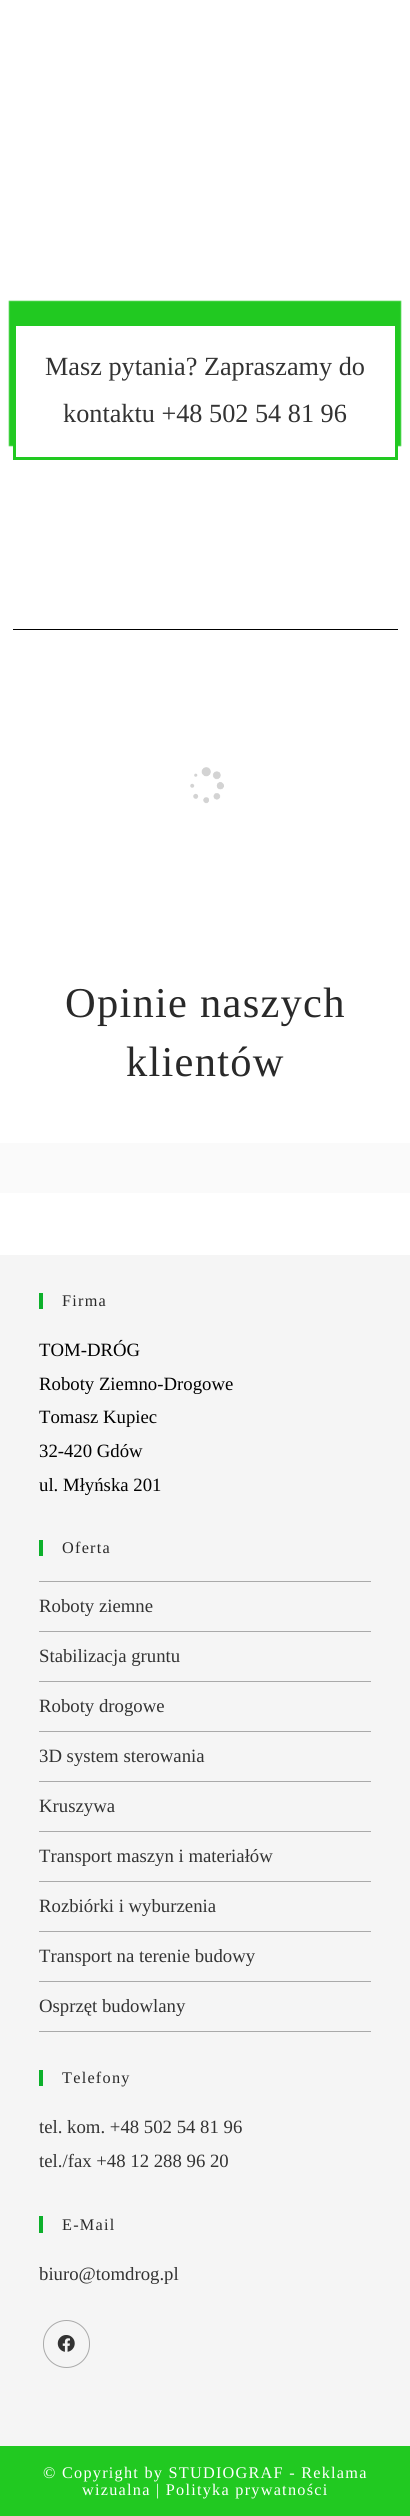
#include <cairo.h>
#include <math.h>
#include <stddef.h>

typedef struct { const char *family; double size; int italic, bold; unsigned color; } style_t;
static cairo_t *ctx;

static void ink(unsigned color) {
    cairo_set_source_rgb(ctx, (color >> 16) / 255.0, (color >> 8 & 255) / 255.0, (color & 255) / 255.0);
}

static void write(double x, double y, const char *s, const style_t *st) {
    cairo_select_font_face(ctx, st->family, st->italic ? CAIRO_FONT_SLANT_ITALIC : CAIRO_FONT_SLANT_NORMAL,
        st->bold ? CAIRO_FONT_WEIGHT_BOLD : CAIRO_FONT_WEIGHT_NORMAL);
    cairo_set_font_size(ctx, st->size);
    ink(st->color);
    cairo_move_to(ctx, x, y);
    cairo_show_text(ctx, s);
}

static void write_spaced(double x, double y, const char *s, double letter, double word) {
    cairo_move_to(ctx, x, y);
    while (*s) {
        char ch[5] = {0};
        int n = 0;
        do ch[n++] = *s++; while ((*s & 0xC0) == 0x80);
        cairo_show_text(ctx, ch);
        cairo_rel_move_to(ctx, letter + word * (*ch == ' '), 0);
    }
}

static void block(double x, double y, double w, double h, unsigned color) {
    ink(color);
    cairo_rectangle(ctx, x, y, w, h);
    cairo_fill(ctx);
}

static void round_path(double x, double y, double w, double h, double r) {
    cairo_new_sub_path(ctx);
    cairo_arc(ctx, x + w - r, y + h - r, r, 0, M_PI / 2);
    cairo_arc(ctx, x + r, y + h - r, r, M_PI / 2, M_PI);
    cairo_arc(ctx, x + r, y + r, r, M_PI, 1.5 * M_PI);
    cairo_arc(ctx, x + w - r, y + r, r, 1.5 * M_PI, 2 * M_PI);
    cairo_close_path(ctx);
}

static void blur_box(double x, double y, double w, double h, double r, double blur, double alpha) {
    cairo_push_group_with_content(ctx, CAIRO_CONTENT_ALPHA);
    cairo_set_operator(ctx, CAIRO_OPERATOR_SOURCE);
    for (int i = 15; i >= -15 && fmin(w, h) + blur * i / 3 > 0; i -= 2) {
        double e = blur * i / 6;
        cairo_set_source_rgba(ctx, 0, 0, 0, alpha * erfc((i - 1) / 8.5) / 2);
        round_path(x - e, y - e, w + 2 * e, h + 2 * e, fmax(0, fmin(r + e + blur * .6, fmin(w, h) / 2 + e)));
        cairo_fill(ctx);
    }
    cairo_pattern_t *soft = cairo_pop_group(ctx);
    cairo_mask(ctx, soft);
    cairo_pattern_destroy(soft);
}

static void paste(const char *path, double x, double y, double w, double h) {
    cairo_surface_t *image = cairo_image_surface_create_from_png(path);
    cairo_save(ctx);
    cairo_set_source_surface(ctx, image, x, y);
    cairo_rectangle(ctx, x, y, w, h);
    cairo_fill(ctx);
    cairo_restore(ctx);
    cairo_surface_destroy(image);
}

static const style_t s1 = {"Liberation Serif", 26.25, 0, 0, 0x333333};
static const style_t s2 = {"Liberation Serif", 18.75, 0, 0, 0x000000};
static const style_t s3 = {"Liberation Serif", 18.75, 0, 0, 0x333333};

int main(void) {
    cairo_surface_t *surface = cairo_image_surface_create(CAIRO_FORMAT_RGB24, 410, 2516);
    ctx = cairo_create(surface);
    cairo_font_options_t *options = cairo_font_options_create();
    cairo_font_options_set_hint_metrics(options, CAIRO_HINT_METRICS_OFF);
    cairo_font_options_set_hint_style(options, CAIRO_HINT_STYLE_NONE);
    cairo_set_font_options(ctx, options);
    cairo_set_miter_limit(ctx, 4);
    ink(0xffffff);
    cairo_paint(ctx);
    cairo_save(ctx);
    cairo_set_fill_rule(ctx, CAIRO_FILL_RULE_EVEN_ODD);
    cairo_new_path(ctx);
    cairo_move_to(ctx, 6, 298);
    cairo_line_to(ctx, 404, 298);
    cairo_line_to(ctx, 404, 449);
    cairo_line_to(ctx, 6, 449);
    cairo_close_path(ctx);
    cairo_move_to(ctx, 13, 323);
    cairo_line_to(ctx, 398, 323);
    cairo_line_to(ctx, 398, 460);
    cairo_line_to(ctx, 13, 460);
    cairo_close_path(ctx);
    cairo_clip(ctx);
    ink(0x21c921);
    blur_box(9, 301, 392, 145, 0, 0.5, 1);
    cairo_restore(ctx);
    cairo_rectangle(ctx, 14.5, 324.5, 382, 134);
    ink(0x21c921);
    cairo_set_line_width(ctx, 3);
    cairo_stroke(ctx);
    write(45, 375, "Masz pytania? Zapraszamy do", &s1);
    write(63, 422, "kontaktu +48 502 54 81 96", &s1);
    block(13, 629, 385, 1, 0x000000);
    paste("pic1.png", 190, 767, 34, 37);
    cairo_set_font_size(ctx, 42.5);
    ink(0x292929);
    write_spaced(65, 1017, "Opinie naszych", 1.25, 0);
    write_spaced(126, 1076, "klientów", 1.25, 0);
    block(0, 1143, 410, 50, 0xfafafa);
    block(0, 1255, 410, 1191, 0xf5f5f5);
    block(39, 1293, 4, 16, 0x0db02b);
    cairo_set_font_size(ctx, 16.25);
    ink(0x292929);
    write_spaced(62, 1306, "Firma", 1.25, 0);
    write(39, 1356, "TOM-DRÓG", &s2);
    write(39, 1390, "Roboty Ziemno-Drogowe", &s2);
    write(39, 1423, "Tomasz Kupiec", &s2);
    write(39, 1457, "32-420 Gdów", &s2);
    write(39, 1491, "ul. Młyńska 201", &s2);
    block(39, 1540, 4, 16, 0x0db02b);
    cairo_set_font_size(ctx, 16.25);
    ink(0x292929);
    write_spaced(62, 1553, "Oferta", 1.25, 0);
    block(39, 1581, 332, 1, 0xaaaaaa);
    block(39, 1631, 332, 1, 0xaaaaaa);
    write(39, 1612, "Roboty ziemne", &s3);
    block(39, 1681, 332, 1, 0xaaaaaa);
    write(39, 1662, "Stabilizacja gruntu", &s3);
    block(39, 1731, 332, 1, 0xaaaaaa);
    write(39, 1712, "Roboty drogowe", &s3);
    block(39, 1781, 332, 1, 0xaaaaaa);
    write(39, 1762, "3D system sterowania", &s3);
    block(39, 1831, 332, 1, 0xaaaaaa);
    write(39, 1812, "Kruszywa", &s3);
    block(39, 1881, 332, 1, 0xaaaaaa);
    write(39, 1862, "Transport maszyn i materiałów", &s3);
    block(39, 1931, 332, 1, 0xaaaaaa);
    write(39, 1912, "Rozbiórki i wyburzenia", &s3);
    block(39, 1981, 332, 1, 0xaaaaaa);
    write(39, 1962, "Transport na terenie budowy", &s3);
    block(39, 2031, 332, 1, 0xaaaaaa);
    write(39, 2012, "Osprzęt budowlany", &s3);
    block(39, 2070, 4, 16, 0x0db02b);
    cairo_set_font_size(ctx, 16.25);
    ink(0x292929);
    write_spaced(62, 2083, "Telefony", 1.25, 0);
    write(39, 2133, "tel. kom. +48 502 54 81 96", &s3);
    write(39, 2167, "tel./fax +48 12 288 96 20", &s3);
    block(39, 2216, 4, 17, 0x0db02b);
    cairo_set_font_size(ctx, 16.25);
    ink(0x292929);
    write_spaced(62, 2230, "E-Mail", 1.25, 0);
    write(39, 2280, "biuro@tomdrog.pl", &s3);
    round_path(43.5, 2320.5, 46, 47, 23);
    ink(0xaaaaaa);
    cairo_set_line_width(ctx, 1);
    cairo_stroke(ctx);
    paste("pic2.png", 57, 2335, 18, 17);
    block(0, 2446, 410, 70, 0x21c921);
    cairo_set_font_size(ctx, 16.25);
    ink(0xffffff);
    write_spaced(43, 2478, "© Copyright by STUDIOGRAF - Reklama", 1.25, 0);
    write_spaced(82, 2495, "wizualna | Polityka prywatności", 1.25, 0);
    cairo_surface_write_to_png(surface, "screenshot.png");
    cairo_font_options_destroy(options);
    cairo_destroy(ctx);
    cairo_surface_destroy(surface);
    return 0;
}
